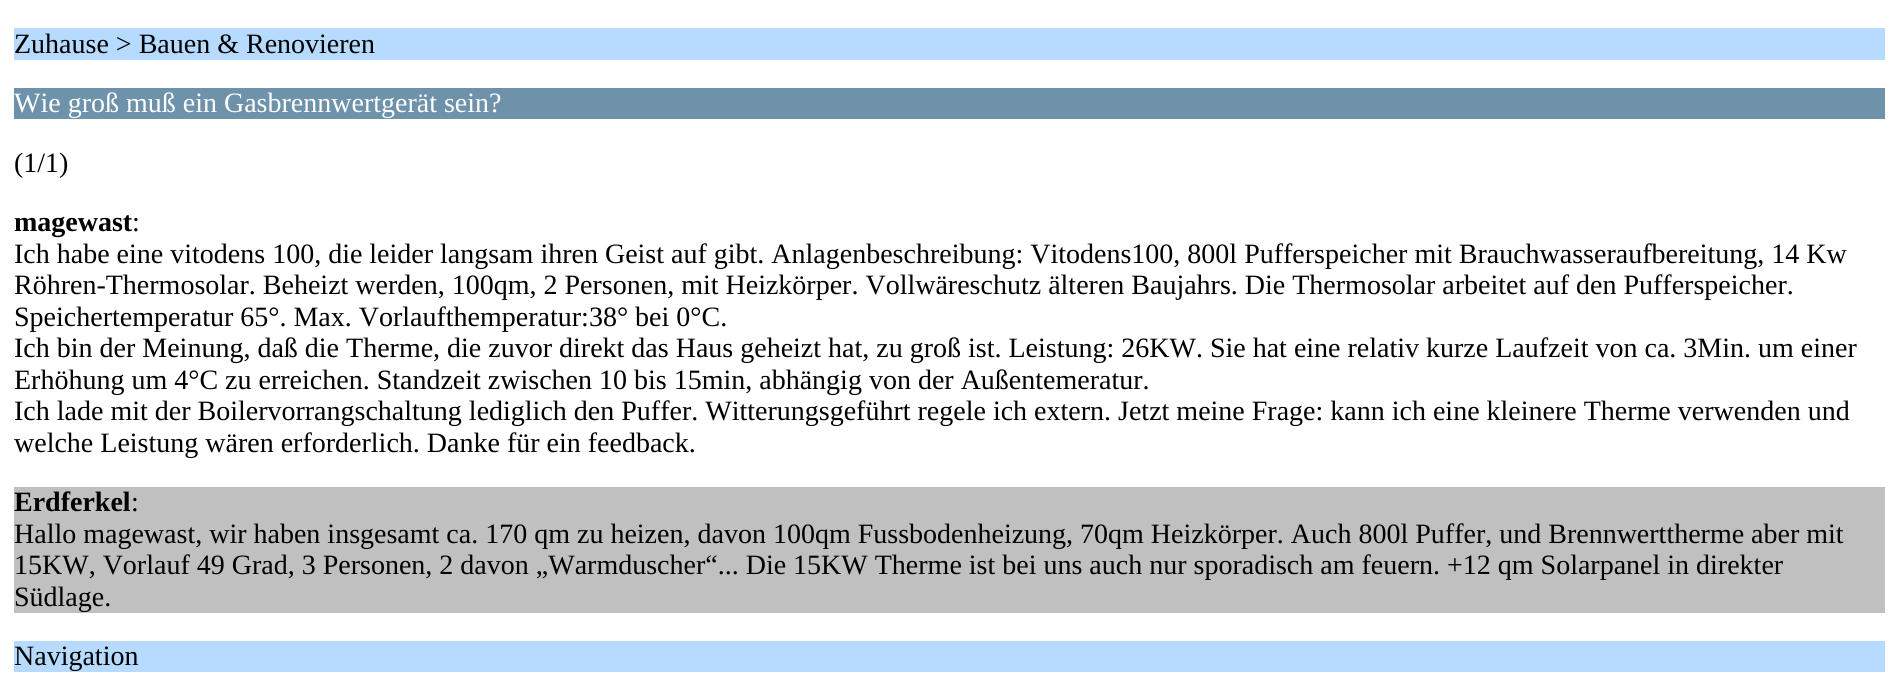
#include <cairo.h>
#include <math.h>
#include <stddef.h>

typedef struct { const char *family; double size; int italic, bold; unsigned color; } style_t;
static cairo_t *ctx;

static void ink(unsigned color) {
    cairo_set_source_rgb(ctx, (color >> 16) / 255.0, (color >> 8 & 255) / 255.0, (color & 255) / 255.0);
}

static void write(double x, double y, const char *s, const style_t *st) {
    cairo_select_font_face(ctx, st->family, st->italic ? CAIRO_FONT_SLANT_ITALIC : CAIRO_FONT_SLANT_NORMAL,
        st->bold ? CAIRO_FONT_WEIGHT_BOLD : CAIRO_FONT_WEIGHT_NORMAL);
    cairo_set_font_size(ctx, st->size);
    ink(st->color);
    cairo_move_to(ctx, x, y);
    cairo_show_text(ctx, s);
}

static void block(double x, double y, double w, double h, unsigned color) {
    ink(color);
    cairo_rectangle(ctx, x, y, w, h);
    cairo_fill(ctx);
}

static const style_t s1 = {"Liberation Serif", 28, 0, 0, 0x000000};
static const style_t s2 = {"Liberation Serif", 28, 0, 0, 0xffffff};
static const style_t s3 = {"Liberation Serif", 28, 0, 1, 0x000000};

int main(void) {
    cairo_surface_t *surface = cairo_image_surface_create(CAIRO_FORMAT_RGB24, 1898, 681);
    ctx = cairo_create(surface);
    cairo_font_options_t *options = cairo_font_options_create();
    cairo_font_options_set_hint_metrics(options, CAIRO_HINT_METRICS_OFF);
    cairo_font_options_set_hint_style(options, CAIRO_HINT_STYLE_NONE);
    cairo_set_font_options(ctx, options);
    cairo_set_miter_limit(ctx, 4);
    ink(0xffffff);
    cairo_paint(ctx);
    block(14, 28, 1871, 32, 0xb6dbff);
    write(14, 53, "Zuhause > Bauen & Renovieren", &s1);
    block(14, 88, 1871, 31, 0x6d92aa);
    write(14, 112, "Wie groß muß ein Gasbrennwertgerät sein?", &s2);
    write(14, 172, "(1/1)", &s1);
    write(14, 231, "magewast", &s3);
    write(132, 231, ":", &s1);
    write(14, 263, "Ich habe eine vitodens 100, die leider langsam ihren Geist auf gibt. Anlagenbeschreibung: Vitodens100, 800l Pufferspeicher mit Brauchwasseraufbereitung, 14 Kw", &s1);
    write(14, 294, "Röhren-Thermosolar. Beheizt werden, 100qm, 2 Personen, mit Heizkörper. Vollwäreschutz älteren Baujahrs. Die Thermosolar arbeitet auf den Pufferspeicher.", &s1);
    write(14, 326, "Speichertemperatur 65°. Max. Vorlaufthemperatur:38° bei 0°C.", &s1);
    write(14, 357, "Ich bin der Meinung, daß die Therme, die zuvor direkt das Haus geheizt hat, zu groß ist. Leistung: 26KW. Sie hat eine relativ kurze Laufzeit von ca. 3Min. um einer", &s1);
    write(14, 389, "Erhöhung um 4°C zu erreichen. Standzeit zwischen 10 bis 15min, abhängig von der Außentemeratur.", &s1);
    write(14, 420, "Ich lade mit der Boilervorrangschaltung lediglich den Puffer. Witterungsgeführt regele ich extern. Jetzt meine Frage: kann ich eine kleinere Therme verwenden und", &s1);
    write(14, 452, "welche Leistung wären erforderlich. Danke für ein feedback.", &s1);
    block(14, 487, 1871, 126, 0xc0c0c0);
    write(14, 511, "Erdferkel", &s3);
    write(131, 511, ":", &s1);
    write(14, 543, "Hallo magewast, wir haben insgesamt ca. 170 qm zu heizen, davon 100qm Fussbodenheizung, 70qm Heizkörper. Auch 800l Puffer, und Brennwerttherme aber mit", &s1);
    write(14, 574, "15KW, Vorlauf 49 Grad, 3 Personen, 2 davon „Warmduscher“... Die 15KW Therme ist bei uns auch nur sporadisch am feuern. +12 qm Solarpanel in direkter", &s1);
    write(14, 606, "Südlage.", &s1);
    block(14, 641, 1871, 31, 0xb6dbff);
    write(14, 665, "Navigation", &s1);
    cairo_surface_write_to_png(surface, "screenshot.png");
    cairo_font_options_destroy(options);
    cairo_destroy(ctx);
    cairo_surface_destroy(surface);
    return 0;
}
